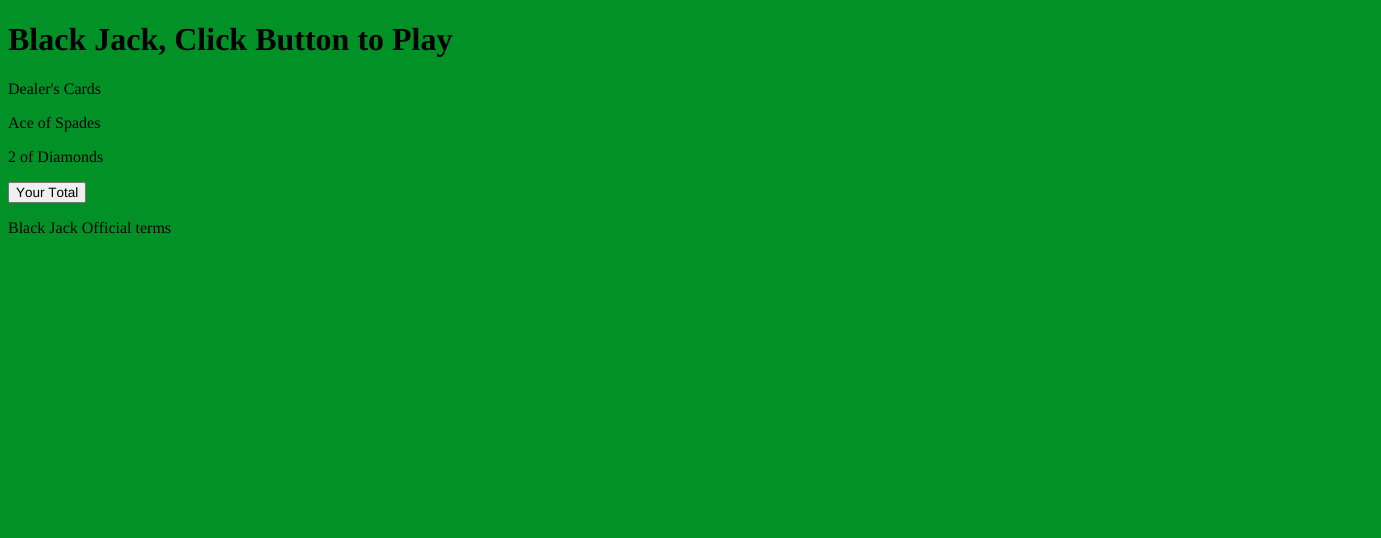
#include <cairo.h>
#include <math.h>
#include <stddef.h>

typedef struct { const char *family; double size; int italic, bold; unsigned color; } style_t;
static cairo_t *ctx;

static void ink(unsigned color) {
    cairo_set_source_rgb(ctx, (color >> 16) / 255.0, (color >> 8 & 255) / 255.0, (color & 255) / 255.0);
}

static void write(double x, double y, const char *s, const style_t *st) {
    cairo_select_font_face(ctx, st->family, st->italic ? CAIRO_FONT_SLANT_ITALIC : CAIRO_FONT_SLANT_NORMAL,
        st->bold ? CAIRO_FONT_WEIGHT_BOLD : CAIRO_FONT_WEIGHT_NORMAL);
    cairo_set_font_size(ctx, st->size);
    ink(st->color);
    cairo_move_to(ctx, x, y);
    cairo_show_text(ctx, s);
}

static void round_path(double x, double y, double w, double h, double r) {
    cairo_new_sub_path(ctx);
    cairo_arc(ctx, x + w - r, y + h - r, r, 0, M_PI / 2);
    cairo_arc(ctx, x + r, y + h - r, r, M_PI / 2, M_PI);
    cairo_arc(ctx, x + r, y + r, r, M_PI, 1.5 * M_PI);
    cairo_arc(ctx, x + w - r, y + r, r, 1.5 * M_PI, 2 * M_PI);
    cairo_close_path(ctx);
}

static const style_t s1 = {"Liberation Serif", 32, 0, 1, 0x000000};
static const style_t s2 = {"Liberation Serif", 16, 0, 0, 0x000000};
static const style_t s3 = {"Liberation Sans", 13.5, 0, 0, 0x000000};

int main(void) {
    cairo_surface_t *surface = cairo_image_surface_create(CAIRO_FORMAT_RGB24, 1381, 538);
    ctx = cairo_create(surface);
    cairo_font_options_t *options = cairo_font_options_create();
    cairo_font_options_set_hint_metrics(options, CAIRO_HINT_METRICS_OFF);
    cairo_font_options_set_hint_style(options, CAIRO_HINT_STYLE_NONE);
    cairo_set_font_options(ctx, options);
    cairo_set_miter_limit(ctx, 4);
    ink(0x029126);
    cairo_paint(ctx);
    write(8, 50, "Black Jack, Click Button to Play", &s1);
    write(8, 94, "Dealer's Cards", &s2);
    write(8, 128, "Ace of Spades", &s2);
    write(8, 162, "2 of Diamonds", &s2);
    ink(0xefefef);
    round_path(8.5, 182.5, 77, 20, 1.5);
    cairo_fill_preserve(ctx);
    ink(0x767676);
    cairo_set_line_width(ctx, 1);
    cairo_stroke(ctx);
    write(16, 197, "Your Total", &s3);
    write(8, 233, "Black Jack Official terms", &s2);
    cairo_surface_write_to_png(surface, "screenshot.png");
    cairo_font_options_destroy(options);
    cairo_destroy(ctx);
    cairo_surface_destroy(surface);
    return 0;
}
